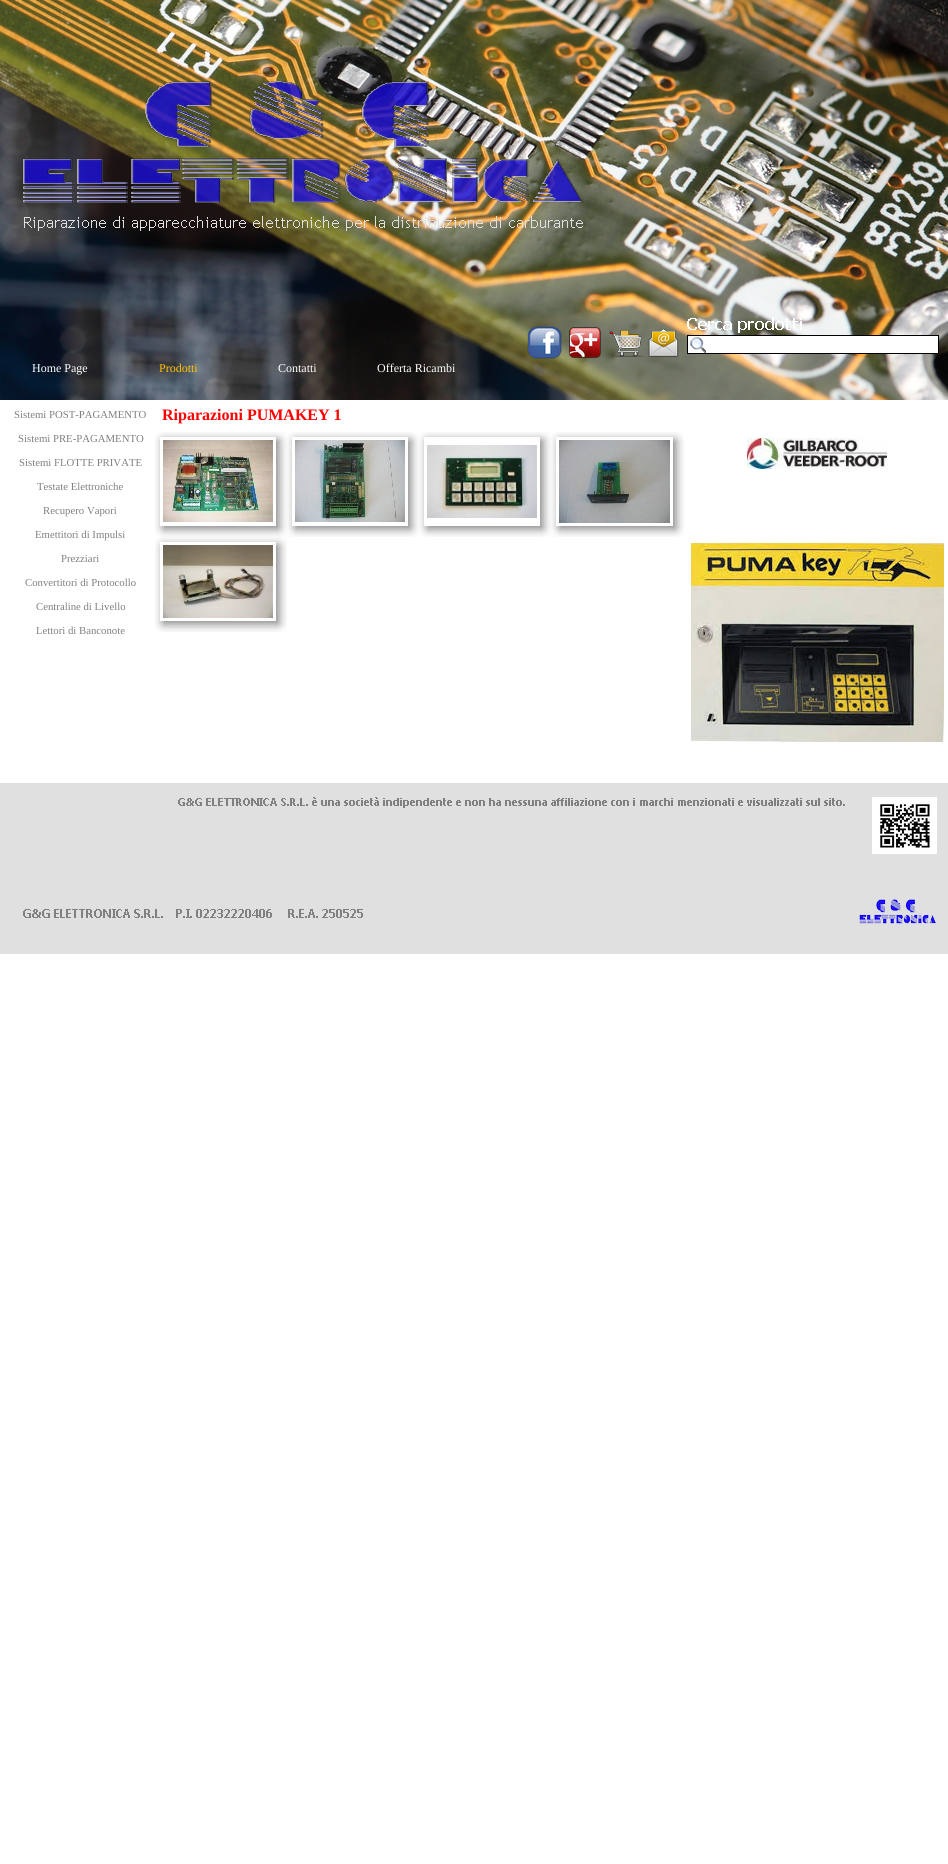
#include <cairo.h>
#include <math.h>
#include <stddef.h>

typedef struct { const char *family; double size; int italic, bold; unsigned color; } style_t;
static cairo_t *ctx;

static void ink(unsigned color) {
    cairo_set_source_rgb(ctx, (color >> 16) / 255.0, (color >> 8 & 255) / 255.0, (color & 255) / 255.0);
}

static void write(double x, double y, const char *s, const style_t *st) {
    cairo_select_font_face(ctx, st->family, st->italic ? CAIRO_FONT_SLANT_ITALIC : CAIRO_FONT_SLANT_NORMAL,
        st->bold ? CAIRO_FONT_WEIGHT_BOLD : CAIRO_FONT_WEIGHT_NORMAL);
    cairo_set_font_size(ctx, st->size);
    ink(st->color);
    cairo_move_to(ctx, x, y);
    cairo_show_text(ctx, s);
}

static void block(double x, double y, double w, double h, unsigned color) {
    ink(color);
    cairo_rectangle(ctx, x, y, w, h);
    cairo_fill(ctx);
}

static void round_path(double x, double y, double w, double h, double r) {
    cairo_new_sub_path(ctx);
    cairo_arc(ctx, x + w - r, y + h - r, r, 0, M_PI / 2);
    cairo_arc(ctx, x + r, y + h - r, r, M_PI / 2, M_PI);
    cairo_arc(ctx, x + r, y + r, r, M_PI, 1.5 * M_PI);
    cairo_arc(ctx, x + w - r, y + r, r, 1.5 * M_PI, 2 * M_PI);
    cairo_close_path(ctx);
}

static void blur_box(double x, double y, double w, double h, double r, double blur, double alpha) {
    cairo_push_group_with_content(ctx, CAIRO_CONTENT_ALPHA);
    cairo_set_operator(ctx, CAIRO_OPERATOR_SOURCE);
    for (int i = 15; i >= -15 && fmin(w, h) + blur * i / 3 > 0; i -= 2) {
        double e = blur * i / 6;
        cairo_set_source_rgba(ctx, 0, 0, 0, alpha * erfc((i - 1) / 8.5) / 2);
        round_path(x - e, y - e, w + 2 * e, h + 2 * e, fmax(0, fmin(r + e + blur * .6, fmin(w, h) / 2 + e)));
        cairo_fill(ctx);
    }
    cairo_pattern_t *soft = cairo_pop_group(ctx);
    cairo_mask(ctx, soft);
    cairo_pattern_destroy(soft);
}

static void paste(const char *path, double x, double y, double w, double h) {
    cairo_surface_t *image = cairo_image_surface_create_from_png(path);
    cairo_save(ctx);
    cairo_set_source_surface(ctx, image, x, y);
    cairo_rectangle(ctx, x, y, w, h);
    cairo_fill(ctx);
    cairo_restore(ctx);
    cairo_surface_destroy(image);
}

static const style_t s1 = {"Liberation Serif", 12, 0, 0, 0xffffff};
static const style_t s2 = {"Liberation Serif", 12, 0, 0, 0xffbf00};
static const style_t s3 = {"Liberation Serif", 10.75, 0, 0, 0x808080};
static const style_t s4 = {"Liberation Serif", 16, 0, 1, 0xff0000};

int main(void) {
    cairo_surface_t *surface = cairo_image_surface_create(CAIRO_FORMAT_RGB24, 948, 1864);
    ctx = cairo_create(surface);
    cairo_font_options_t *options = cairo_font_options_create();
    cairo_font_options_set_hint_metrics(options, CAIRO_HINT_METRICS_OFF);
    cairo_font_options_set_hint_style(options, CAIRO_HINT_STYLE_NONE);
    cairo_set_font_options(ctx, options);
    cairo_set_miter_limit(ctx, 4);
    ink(0xffffff);
    cairo_paint(ctx);
    paste("pic1.png", 0, 0, 948, 400);
    paste("pic2.png", 22, 81, 780, 278);
    block(688, 336, 250, 17, 0xffffff);
    paste("pic3.png", 690, 337, 16, 16);
    cairo_rectangle(ctx, 687.5, 335.5, 251, 18);
    ink(0x000000);
    cairo_set_line_width(ctx, 1);
    cairo_stroke(ctx);
    write(32, 372, "Home Page", &s1);
    write(159, 372, "Prodotti", &s2);
    write(278, 372, "Contatti", &s1);
    write(377, 372, "Offerta Ricambi", &s1);
    write(14, 418, "Sistemi POST-PAGAMENTO", &s3);
    write(18, 442, "Sistemi PRE-PAGAMENTO", &s3);
    write(19, 466, "Sistemi FLOTTE PRIVATE", &s3);
    write(37, 490, "Testate Elettroniche", &s3);
    write(43, 514, "Recupero Vapori", &s3);
    write(35, 538, "Emettitori di Impulsi", &s3);
    write(61, 562, "Prezziari", &s3);
    write(25, 586, "Convertitori di Protocollo", &s3);
    write(36, 610, "Centraline di Livello", &s3);
    write(36, 634, "Lettori di Banconote", &s3);
    write(162, 420, "Riparazioni PUMAKEY 1", &s4);
    cairo_save(ctx);
    cairo_rectangle(ctx, 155, 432, 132, 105);
    cairo_clip(ctx);
    cairo_set_fill_rule(ctx, CAIRO_FILL_RULE_EVEN_ODD);
    cairo_new_path(ctx);
    cairo_move_to(ctx, 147, 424);
    cairo_line_to(ctx, 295, 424);
    cairo_line_to(ctx, 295, 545);
    cairo_line_to(ctx, 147, 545);
    cairo_close_path(ctx);
    cairo_move_to(ctx, 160, 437);
    cairo_line_to(ctx, 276, 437);
    cairo_line_to(ctx, 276, 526);
    cairo_line_to(ctx, 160, 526);
    cairo_close_path(ctx);
    cairo_clip(ctx);
    ink(0x808080);
    blur_box(163, 440, 116, 89, 0, 5, 1);
    cairo_restore(ctx);
    paste("pic4.png", 163, 440, 110, 82);
    cairo_save(ctx);
    cairo_rectangle(ctx, 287, 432, 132, 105);
    cairo_clip(ctx);
    cairo_set_fill_rule(ctx, CAIRO_FILL_RULE_EVEN_ODD);
    cairo_new_path(ctx);
    cairo_move_to(ctx, 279, 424);
    cairo_line_to(ctx, 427, 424);
    cairo_line_to(ctx, 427, 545);
    cairo_line_to(ctx, 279, 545);
    cairo_close_path(ctx);
    cairo_move_to(ctx, 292, 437);
    cairo_line_to(ctx, 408, 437);
    cairo_line_to(ctx, 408, 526);
    cairo_line_to(ctx, 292, 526);
    cairo_close_path(ctx);
    cairo_clip(ctx);
    ink(0x808080);
    blur_box(295, 440, 116, 89, 0, 5, 1);
    cairo_restore(ctx);
    paste("pic5.png", 295, 440, 110, 82);
    cairo_save(ctx);
    cairo_rectangle(ctx, 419, 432, 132, 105);
    cairo_clip(ctx);
    cairo_set_fill_rule(ctx, CAIRO_FILL_RULE_EVEN_ODD);
    cairo_new_path(ctx);
    cairo_move_to(ctx, 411, 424);
    cairo_line_to(ctx, 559, 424);
    cairo_line_to(ctx, 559, 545);
    cairo_line_to(ctx, 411, 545);
    cairo_close_path(ctx);
    cairo_move_to(ctx, 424, 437);
    cairo_line_to(ctx, 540, 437);
    cairo_line_to(ctx, 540, 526);
    cairo_line_to(ctx, 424, 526);
    cairo_close_path(ctx);
    cairo_clip(ctx);
    ink(0x808080);
    blur_box(427, 440, 116, 89, 0, 5, 1);
    cairo_restore(ctx);
    paste("pic6.png", 427, 445, 110, 73);
    cairo_save(ctx);
    cairo_rectangle(ctx, 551, 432, 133, 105);
    cairo_clip(ctx);
    cairo_set_fill_rule(ctx, CAIRO_FILL_RULE_EVEN_ODD);
    cairo_new_path(ctx);
    cairo_move_to(ctx, 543, 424);
    cairo_line_to(ctx, 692, 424);
    cairo_line_to(ctx, 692, 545);
    cairo_line_to(ctx, 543, 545);
    cairo_close_path(ctx);
    cairo_move_to(ctx, 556, 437);
    cairo_line_to(ctx, 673, 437);
    cairo_line_to(ctx, 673, 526);
    cairo_line_to(ctx, 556, 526);
    cairo_close_path(ctx);
    cairo_clip(ctx);
    ink(0x808080);
    blur_box(559, 440, 117, 89, 0, 5, 1);
    cairo_restore(ctx);
    paste("pic7.png", 559, 440, 111, 83);
    paste("pic8.png", 747, 438, 140, 31);
    cairo_save(ctx);
    cairo_rectangle(ctx, 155, 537, 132, 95);
    cairo_clip(ctx);
    cairo_set_fill_rule(ctx, CAIRO_FILL_RULE_EVEN_ODD);
    cairo_new_path(ctx);
    cairo_move_to(ctx, 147, 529);
    cairo_line_to(ctx, 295, 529);
    cairo_line_to(ctx, 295, 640);
    cairo_line_to(ctx, 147, 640);
    cairo_close_path(ctx);
    cairo_move_to(ctx, 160, 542);
    cairo_line_to(ctx, 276, 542);
    cairo_line_to(ctx, 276, 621);
    cairo_line_to(ctx, 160, 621);
    cairo_close_path(ctx);
    cairo_clip(ctx);
    ink(0x808080);
    blur_box(163, 545, 116, 79, 0, 5, 1);
    cairo_restore(ctx);
    paste("pic9.png", 163, 545, 110, 73);
    paste("pic10.png", 691, 543, 253, 199);
    block(0, 783, 948, 171, 0xe0e0e0);
    paste("pic11.png", 23, 797, 914, 127);
    cairo_surface_write_to_png(surface, "screenshot.png");
    cairo_font_options_destroy(options);
    cairo_destroy(ctx);
    cairo_surface_destroy(surface);
    return 0;
}
